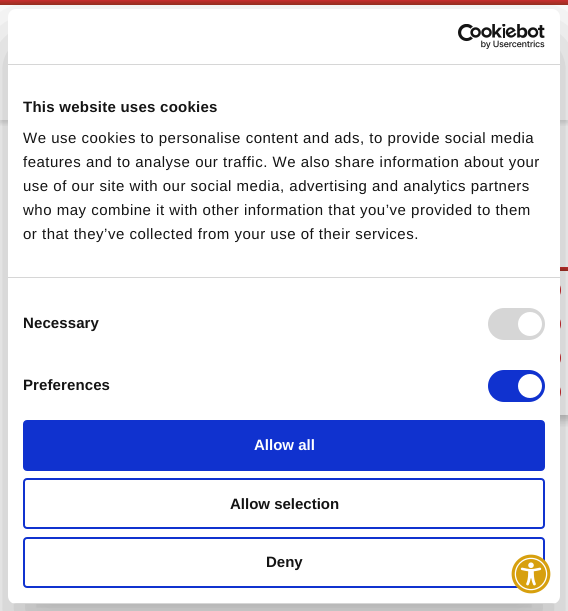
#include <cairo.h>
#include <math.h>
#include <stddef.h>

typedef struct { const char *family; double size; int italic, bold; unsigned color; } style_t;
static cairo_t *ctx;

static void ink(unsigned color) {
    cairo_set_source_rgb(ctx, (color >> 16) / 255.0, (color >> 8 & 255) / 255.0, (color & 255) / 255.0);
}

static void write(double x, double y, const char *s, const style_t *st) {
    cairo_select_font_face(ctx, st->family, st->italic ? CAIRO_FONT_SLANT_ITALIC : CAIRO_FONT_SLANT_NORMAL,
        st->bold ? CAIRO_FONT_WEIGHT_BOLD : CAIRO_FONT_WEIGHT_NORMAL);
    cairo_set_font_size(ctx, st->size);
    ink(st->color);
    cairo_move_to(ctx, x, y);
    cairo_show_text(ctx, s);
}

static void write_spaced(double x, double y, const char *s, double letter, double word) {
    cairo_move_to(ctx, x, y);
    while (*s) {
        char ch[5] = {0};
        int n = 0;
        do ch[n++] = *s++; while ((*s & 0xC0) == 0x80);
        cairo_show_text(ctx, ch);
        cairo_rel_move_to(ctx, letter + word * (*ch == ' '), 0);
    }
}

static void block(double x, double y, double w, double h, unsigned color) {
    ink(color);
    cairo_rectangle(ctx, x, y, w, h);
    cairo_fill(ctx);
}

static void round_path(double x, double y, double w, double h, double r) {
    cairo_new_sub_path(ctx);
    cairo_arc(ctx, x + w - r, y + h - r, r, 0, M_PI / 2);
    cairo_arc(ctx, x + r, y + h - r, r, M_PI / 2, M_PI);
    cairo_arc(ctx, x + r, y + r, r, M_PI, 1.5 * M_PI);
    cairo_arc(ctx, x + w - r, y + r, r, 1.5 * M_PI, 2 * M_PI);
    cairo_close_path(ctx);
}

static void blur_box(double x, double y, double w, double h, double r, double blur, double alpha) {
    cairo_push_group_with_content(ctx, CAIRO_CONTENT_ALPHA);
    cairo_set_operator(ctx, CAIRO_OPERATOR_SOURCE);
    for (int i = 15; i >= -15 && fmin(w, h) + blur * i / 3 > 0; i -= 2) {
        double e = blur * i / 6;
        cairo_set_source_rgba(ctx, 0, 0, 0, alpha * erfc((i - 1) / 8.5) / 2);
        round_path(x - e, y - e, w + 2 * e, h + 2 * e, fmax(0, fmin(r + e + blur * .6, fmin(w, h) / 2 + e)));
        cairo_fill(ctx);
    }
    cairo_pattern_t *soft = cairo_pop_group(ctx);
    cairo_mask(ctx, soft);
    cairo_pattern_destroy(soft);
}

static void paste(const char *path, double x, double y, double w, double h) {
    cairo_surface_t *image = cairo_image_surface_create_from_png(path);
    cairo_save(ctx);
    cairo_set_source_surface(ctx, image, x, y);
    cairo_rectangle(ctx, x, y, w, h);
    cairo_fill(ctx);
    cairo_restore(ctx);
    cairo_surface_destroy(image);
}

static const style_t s1 = {"Liberation Sans", 15, 0, 1, 0xffffff};
static const style_t s2 = {"Liberation Sans", 15, 0, 1, 0x141414};

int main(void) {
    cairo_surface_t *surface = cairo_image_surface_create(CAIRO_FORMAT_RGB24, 568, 611);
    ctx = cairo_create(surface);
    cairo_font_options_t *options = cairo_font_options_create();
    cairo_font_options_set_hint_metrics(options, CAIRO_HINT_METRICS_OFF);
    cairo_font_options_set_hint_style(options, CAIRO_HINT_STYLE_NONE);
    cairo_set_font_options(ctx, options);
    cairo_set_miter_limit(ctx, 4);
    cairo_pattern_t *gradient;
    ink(0xffffff);
    cairo_paint(ctx);
    cairo_save(ctx);
    cairo_rectangle(ctx, 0, 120, 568, 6);
    cairo_clip(ctx);
    ink(0x000000);
    blur_box(0, 3, 568, 120, 0, 2.5, 0.15);
    cairo_restore(ctx);
    cairo_save(ctx);
    cairo_rectangle(ctx, 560, 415, 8, 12);
    cairo_clip(ctx);
    ink(0x000000);
    blur_box(535, 276, 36, 144, 0, 5, 0.25);
    cairo_restore(ctx);
    gradient = cairo_pattern_create_linear(550, 267, 550, 271);
    cairo_pattern_add_color_stop_rgba(gradient, 0, 0.788, 0.184, 0.18, 1);
    cairo_pattern_add_color_stop_rgba(gradient, 1, 0.62, 0.188, 0.137, 1);
    cairo_set_source(ctx, gradient);
    cairo_pattern_destroy(gradient);
    cairo_rectangle(ctx, 560, 267, 8, 4);
    cairo_fill(ctx);
    paste("pic1.png", 560, 285, 1, 10);
    paste("pic2.png", 560, 319, 1, 10);
    paste("pic3.png", 560, 353, 1, 10);
    paste("pic4.png", 560, 387, 1, 10);
    gradient = cairo_pattern_create_linear(284, 0, 284, 5);
    cairo_pattern_add_color_stop_rgba(gradient, 0, 0.808, 0.184, 0.184, 1);
    cairo_pattern_add_color_stop_rgba(gradient, 1, 0.6, 0.188, 0.133, 1);
    cairo_set_source(ctx, gradient);
    cairo_pattern_destroy(gradient);
    cairo_rectangle(ctx, 0, 0, 568, 5);
    cairo_fill(ctx);
    ink(0xefefef);
    blur_box(47, 579, 474, 25, 0, 12, 1);
    ink(0x000000);
    blur_box(8, 41, 552, 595, 8, 34, 0.3);
    ink(0xffffff);
    round_path(8, 9, 552, 595, 8);
    cairo_fill(ctx);
    block(8, 64, 552, 1, 0xd6d6d6);
    paste("pic5.png", 458, 24, 87, 25);
    block(8, 277, 552, 1, 0xd6d6d6);
    cairo_select_font_face(ctx, "Liberation Sans", CAIRO_FONT_SLANT_NORMAL, CAIRO_FONT_WEIGHT_BOLD);
    cairo_set_font_size(ctx, 15);
    ink(0x141414);
    write_spaced(23, 112, "This website uses cookies", 0.25, 0);
    cairo_select_font_face(ctx, "Liberation Sans", CAIRO_FONT_SLANT_NORMAL, CAIRO_FONT_WEIGHT_NORMAL);
    write_spaced(23, 143, "We use cookies to personalise content and ads, to provide social media", 0.5, 0);
    write_spaced(23, 167, "features and to analyse our traffic. We also share information about your", 0.5, 0);
    write_spaced(23, 191, "use of our site with our social media, advertising and analytics partners", 0.5, 0);
    write_spaced(23, 215, "who may combine it with other information that you’ve provided to them", 0.5, 0);
    write_spaced(23, 239, "or that they’ve collected from your use of their services.", 0.5, 0);
    cairo_select_font_face(ctx, "Liberation Sans", CAIRO_FONT_SLANT_NORMAL, CAIRO_FONT_WEIGHT_BOLD);
    write_spaced(23, 328, "Necessary", 0.1, 0);
    ink(0xd6d6d6);
    round_path(488, 308, 57, 32, 16);
    cairo_fill(ctx);
    ink(0xffffff);
    cairo_arc(ctx, 530, 324, 12, 0, 2 * M_PI);
    cairo_fill(ctx);
    ink(0x141414);
    write_spaced(23, 390, "Preferences", 0.1, 0);
    ink(0x1032cf);
    round_path(488, 370, 57, 32, 16);
    cairo_fill(ctx);
    ink(0xffffff);
    cairo_arc(ctx, 530, 386, 12, 0, 2 * M_PI);
    cairo_fill(ctx);
    cairo_save(ctx);
    round_path(8, 9, 552, 595, 8);
    cairo_clip(ctx);
    block(8, 603, 552, 1, 0xd6d6d6);
    cairo_restore(ctx);
    ink(0x1032cf);
    round_path(24, 421, 520, 49, 3);
    cairo_fill_preserve(ctx);
    cairo_stroke(ctx);
    write(254, 450, "Allow all", &s1);
    round_path(24, 479, 520, 49, 3);
    ink(0x1032cf);
    cairo_stroke(ctx);
    write(230, 509, "Allow selection", &s2);
    round_path(24, 538, 520, 49, 3);
    ink(0x1032cf);
    cairo_stroke(ctx);
    write(266, 567, "Deny", &s2);
    ink(0xffffff);
    cairo_new_path(ctx);
    cairo_move_to(ctx, 531, 555.5);
    cairo_curve_to(ctx, 521, 555.5, 512.5, 564, 512.5, 574);
    cairo_curve_to(ctx, 512.5, 584, 521, 592.5, 531, 592.5);
    cairo_curve_to(ctx, 541, 592.5, 549.5, 584, 549.5, 574);
    cairo_curve_to(ctx, 549.5, 564, 541, 555.5, 531, 555.5);
    cairo_close_path(ctx);
    cairo_fill(ctx);
    paste("pic6.png", 511, 554, 40, 40);
    cairo_surface_write_to_png(surface, "screenshot.png");
    cairo_font_options_destroy(options);
    cairo_destroy(ctx);
    cairo_surface_destroy(surface);
    return 0;
}
